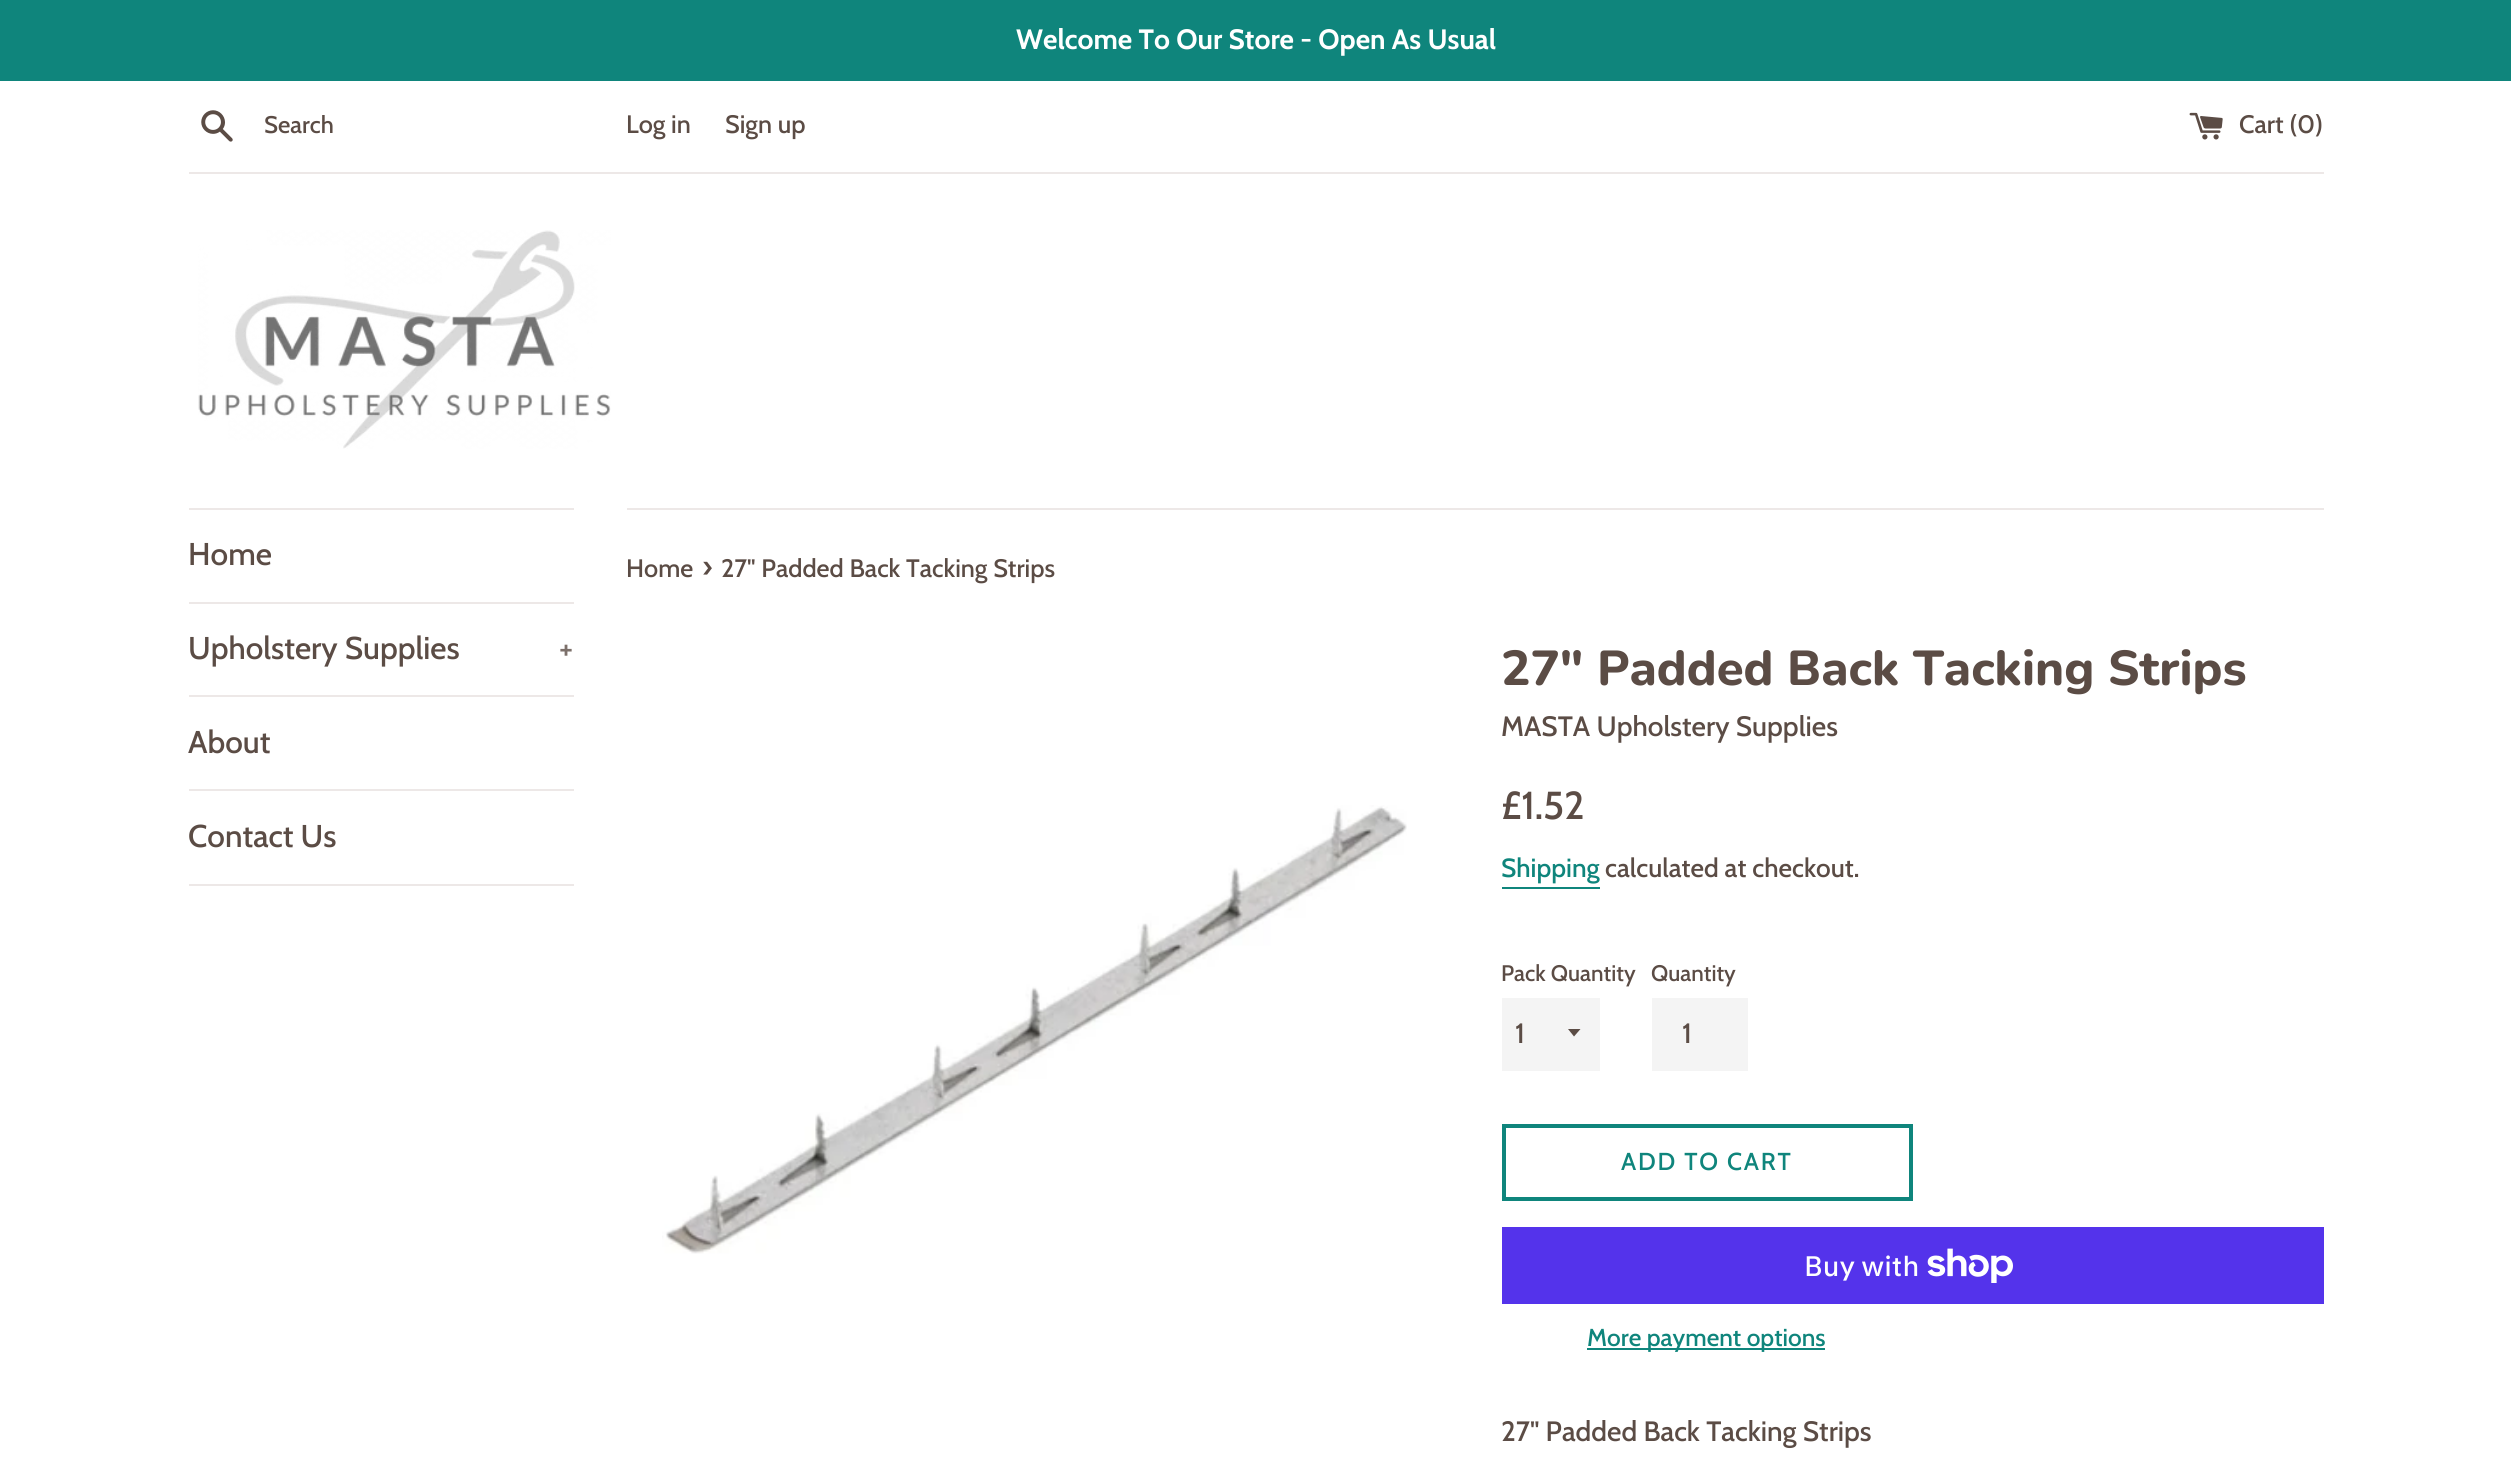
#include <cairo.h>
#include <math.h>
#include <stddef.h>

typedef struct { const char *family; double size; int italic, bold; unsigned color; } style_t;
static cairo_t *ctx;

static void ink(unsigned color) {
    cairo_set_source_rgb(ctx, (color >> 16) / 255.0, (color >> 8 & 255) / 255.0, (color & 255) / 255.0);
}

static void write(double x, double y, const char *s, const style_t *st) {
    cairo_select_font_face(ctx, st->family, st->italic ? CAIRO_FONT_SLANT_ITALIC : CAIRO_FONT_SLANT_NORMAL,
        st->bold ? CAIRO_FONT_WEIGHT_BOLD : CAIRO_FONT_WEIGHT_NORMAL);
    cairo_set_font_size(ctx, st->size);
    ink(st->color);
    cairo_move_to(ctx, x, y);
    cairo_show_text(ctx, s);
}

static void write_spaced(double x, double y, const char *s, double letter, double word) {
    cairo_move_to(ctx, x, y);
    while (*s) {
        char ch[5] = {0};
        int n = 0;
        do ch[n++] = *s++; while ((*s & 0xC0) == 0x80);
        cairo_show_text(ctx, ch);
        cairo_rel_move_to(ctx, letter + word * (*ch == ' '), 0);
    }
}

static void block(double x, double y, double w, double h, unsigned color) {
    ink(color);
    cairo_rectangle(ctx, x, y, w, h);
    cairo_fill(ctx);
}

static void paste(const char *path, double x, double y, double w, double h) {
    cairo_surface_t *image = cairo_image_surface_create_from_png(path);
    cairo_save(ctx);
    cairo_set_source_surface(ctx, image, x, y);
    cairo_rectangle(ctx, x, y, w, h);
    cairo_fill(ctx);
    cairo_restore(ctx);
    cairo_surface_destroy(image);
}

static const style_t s1 = {"Cabin", 28, 0, 1, 0xffffff};
static const style_t s2 = {"Cabin Medium", 24, 0, 0, 0x5b4c45};
static const style_t s3 = {"Cabin Medium", 25.25, 0, 0, 0x5b4c45};
static const style_t s4 = {"Cabin Medium", 31.5, 0, 0, 0x5b4c45};
static const style_t s5 = {"Cabin Medium", 31.5, 0, 0, 0x7c706a};
static const style_t s6 = {"Cabin Medium", 31, 0, 0, 0x5b4c45};
static const style_t s7 = {"Nunito ExtraBold", 49, 0, 0, 0x5b4c45};
static const style_t s8 = {"Cabin Medium", 28, 0, 0, 0x5b4c45};
static const style_t s9 = {"Cabin Medium", 39, 0, 0, 0x5b4c45};
static const style_t s10 = {"Cabin Medium", 26.25, 0, 0, 0x0f857c};
static const style_t s11 = {"Cabin Medium", 26.25, 0, 0, 0x5b4c45};
static const style_t s12 = {"Cabin Medium", 22.5, 0, 0, 0x5b4c45};
static const style_t s13 = {"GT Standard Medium", 28, 0, 0, 0xffffff};
static const style_t s14 = {"Cabin Medium", 24.5, 0, 0, 0x0f857c};

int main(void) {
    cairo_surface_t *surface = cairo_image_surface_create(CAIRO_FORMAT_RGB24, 2511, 1478);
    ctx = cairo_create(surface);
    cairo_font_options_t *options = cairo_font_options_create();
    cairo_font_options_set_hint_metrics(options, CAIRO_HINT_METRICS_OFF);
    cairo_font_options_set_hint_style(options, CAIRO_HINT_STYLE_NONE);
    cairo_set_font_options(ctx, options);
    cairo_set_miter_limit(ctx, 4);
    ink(0xffffff);
    cairo_paint(ctx);
    block(0, 0, 2511, 81, 0x0f857c);
    write(1016, 49, "Welcome To Our Store - Open As Usual", &s1);
    paste("pic1.png", 201, 110, 32, 32);
    write(264, 133, "Search", &s2);
    write(626, 133, "Log in", &s3);
    write(725, 133, "Sign up", &s3);
    paste("pic2.png", 2189, 112, 34, 28);
    write(2239, 133, "Cart (0)", &s3);
    block(189, 172, 2135, 2, 0xede8e7);
    paste("pic3.png", 198, 230, 413, 219);
    block(189, 508, 385, 2, 0xede8e7);
    block(189, 602, 385, 2, 0xede8e7);
    write(188, 565, "Home", &s4);
    block(189, 695, 385, 2, 0xede8e7);
    write(188, 659, "Upholstery Supplies", &s4);
    write(559, 659, "+", &s5);
    block(189, 789, 385, 2, 0xede8e7);
    write(188, 753, "About", &s4);
    block(189, 884, 385, 2, 0xede8e7);
    write(188, 847, "Contact Us", &s4);
    block(627, 508, 1697, 2, 0xede8e7);
    write(626, 577, "Home", &s3);
    write(702, 577, "›", &s6);
    write(721, 577, "27\" Padded Back Tacking Strips", &s3);
    paste("pic4.png", 662, 805, 745, 449);
    write(1501, 685, "27\" Padded Back Tacking Strips", &s7);
    write(1501, 736, "MASTA Upholstery Supplies", &s8);
    write(1501, 819, "£1.52", &s9);
    write(1501, 877, "Shipping", &s10);
    block(1502, 887, 98, 2, 0x0f857c);
    write(1605, 877, "calculated at checkout.", &s11);
    write(1501, 981, "Pack Quantity", &s12);
    block(1502, 998, 98, 73, 0xf4f4f4);
    ink(0x5b4c45);
    cairo_new_path(ctx);
    cairo_move_to(ctx, 1568, 1029);
    cairo_line_to(ctx, 1574, 1036.5);
    cairo_line_to(ctx, 1580.5, 1029);
    cairo_close_path(ctx);
    cairo_fill(ctx);
    write(1515, 1043, "1", &s8);
    write(1651, 981, "Quantity", &s12);
    block(1652, 998, 96, 73, 0xf4f4f4);
    write(1682, 1043, "1", &s8);
    cairo_rectangle(ctx, 1504, 1126, 407, 73);
    ink(0x0f857c);
    cairo_set_line_width(ctx, 4);
    cairo_stroke(ctx);
    cairo_set_font_size(ctx, 24.5);
    write_spaced(1621, 1170, "ADD TO CART", 1.75, 0);
    block(1502, 1227, 822, 77, 0x5433eb);
    write(1804, 1276, "Buy with", &s13);
    paste("pic5.png", 1927, 1248, 86, 35);
    block(1587, 1348, 238, 2, 0x0f857c);
    write(1587, 1346, "More payment options", &s14);
    write(1501, 1441, "27\" Padded Back Tacking Strips", &s8);
    cairo_surface_write_to_png(surface, "screenshot.png");
    cairo_font_options_destroy(options);
    cairo_destroy(ctx);
    cairo_surface_destroy(surface);
    return 0;
}
